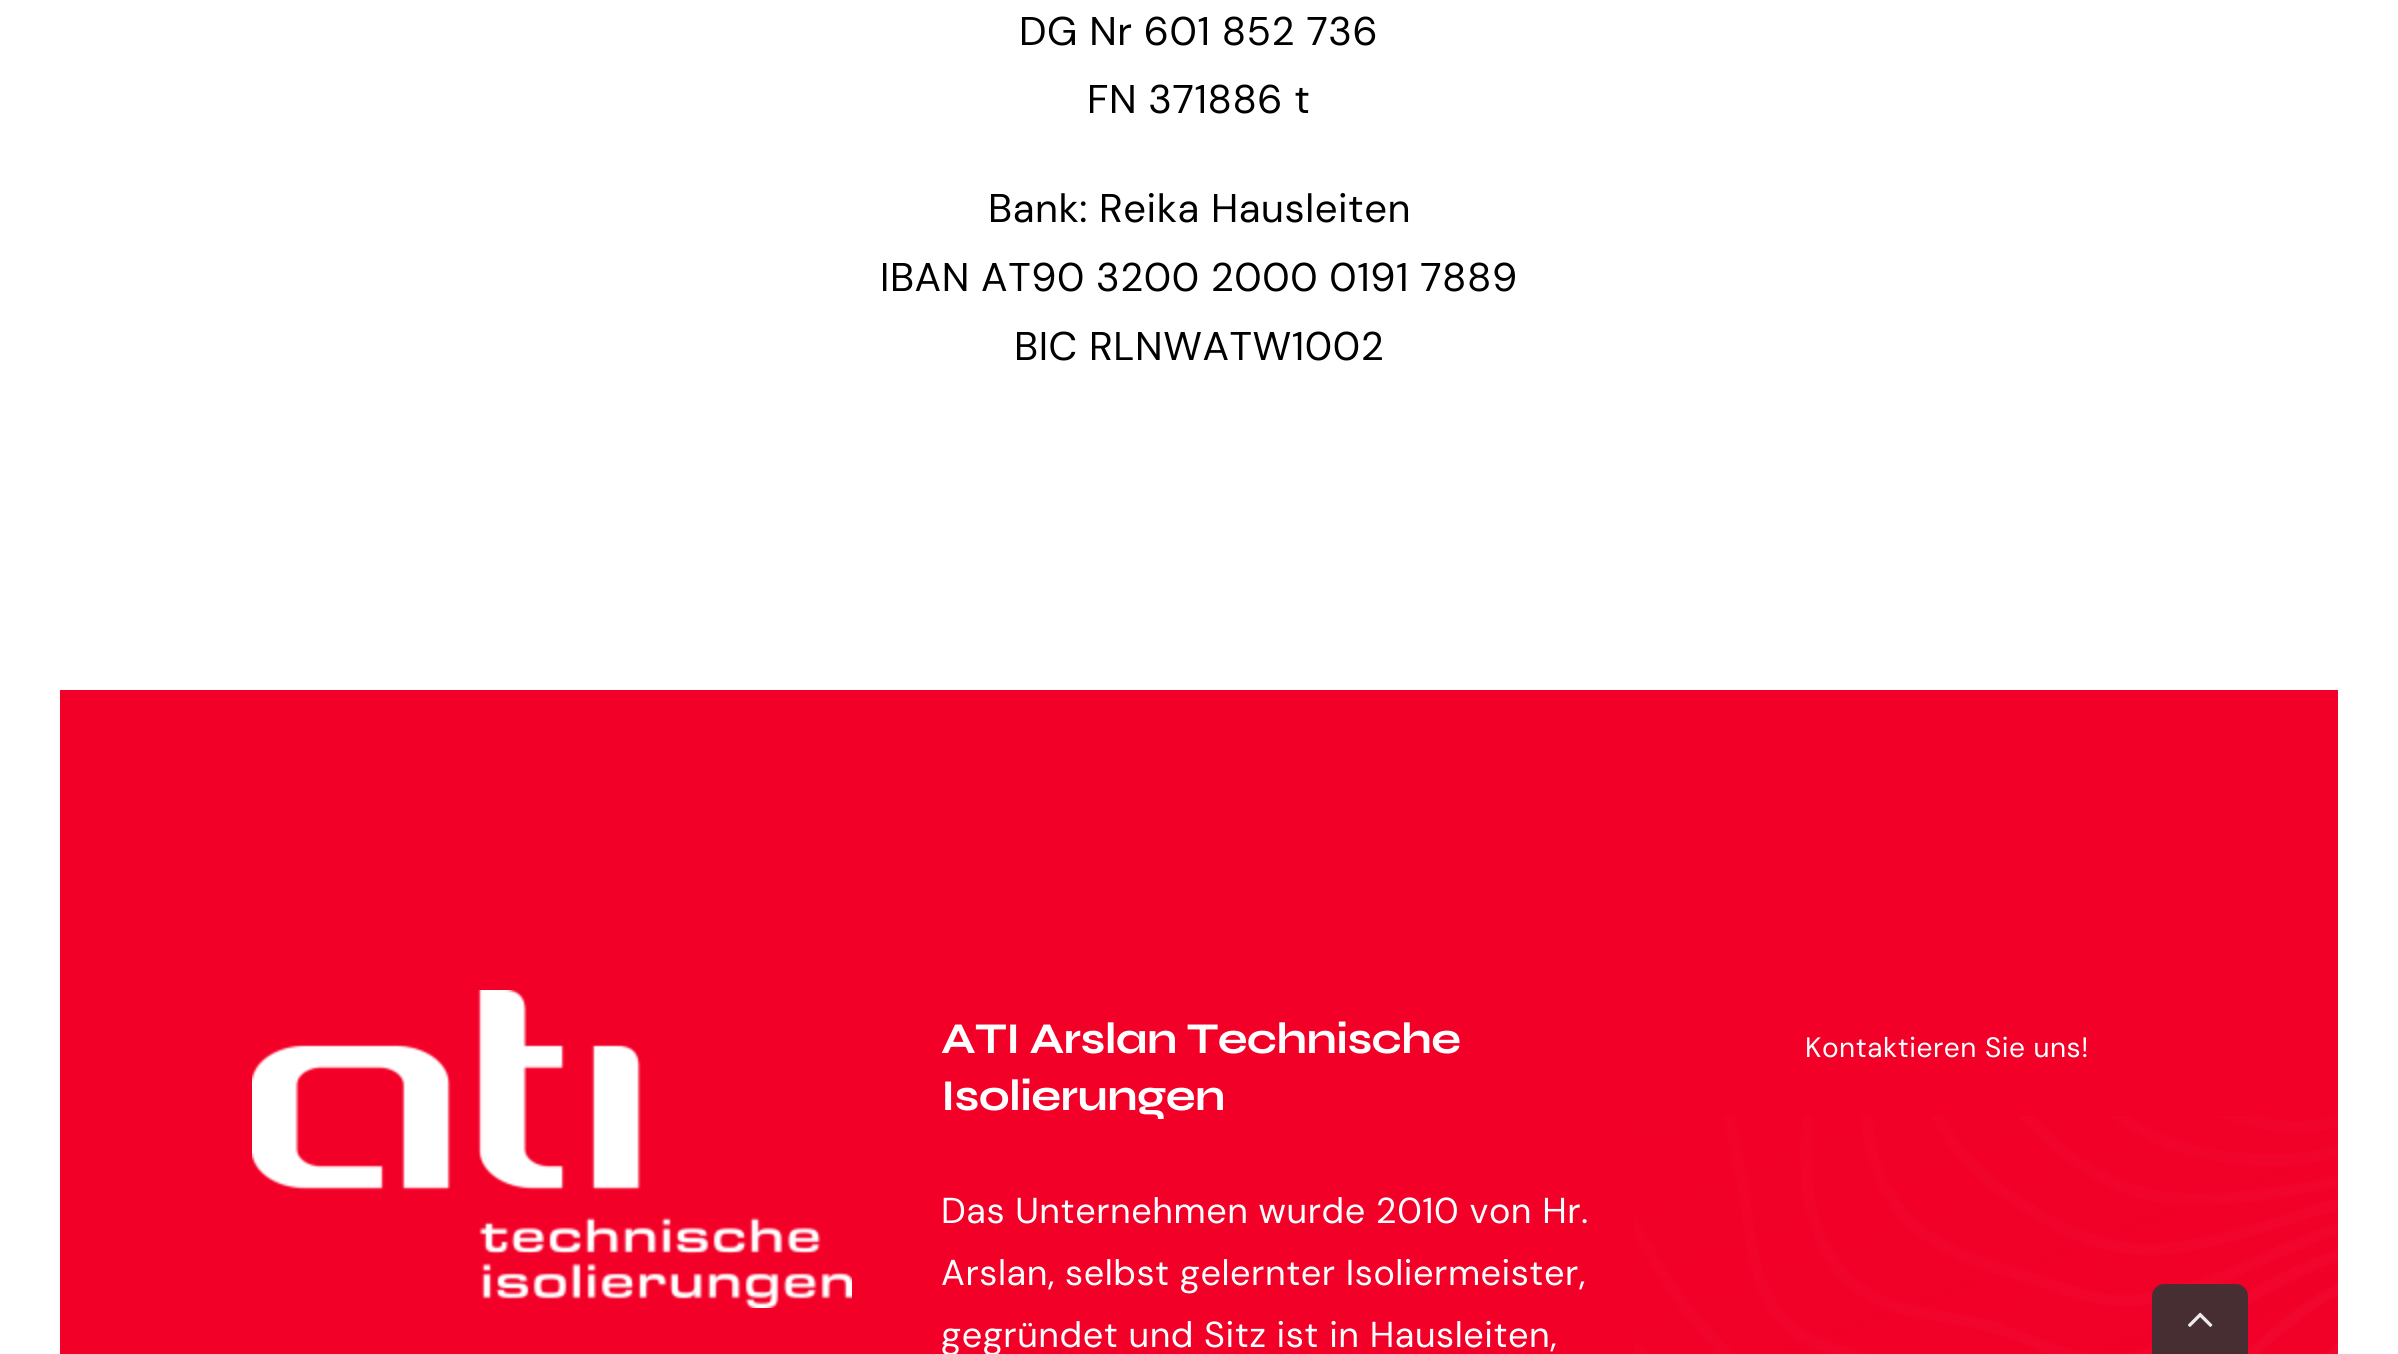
#include <cairo.h>
#include <math.h>
#include <stddef.h>

static cairo_t *ctx;

static void ink(unsigned color) {
    cairo_set_source_rgb(ctx, (color >> 16) / 255.0, (color >> 8 & 255) / 255.0, (color & 255) / 255.0);
}

static void write_spaced(double x, double y, const char *s, double letter, double word) {
    cairo_move_to(ctx, x, y);
    while (*s) {
        char ch[5] = {0};
        int n = 0;
        do ch[n++] = *s++; while ((*s & 0xC0) == 0x80);
        cairo_show_text(ctx, ch);
        cairo_rel_move_to(ctx, letter + word * (*ch == ' '), 0);
    }
}

static void block(double x, double y, double w, double h, unsigned color) {
    ink(color);
    cairo_rectangle(ctx, x, y, w, h);
    cairo_fill(ctx);
}

static void paste(const char *path, double x, double y, double w, double h) {
    cairo_surface_t *image = cairo_image_surface_create_from_png(path);
    cairo_save(ctx);
    cairo_set_source_surface(ctx, image, x, y);
    cairo_rectangle(ctx, x, y, w, h);
    cairo_fill(ctx);
    cairo_restore(ctx);
    cairo_surface_destroy(image);
}

int main(void) {
    cairo_surface_t *surface = cairo_image_surface_create(CAIRO_FORMAT_RGB24, 2398, 1354);
    ctx = cairo_create(surface);
    cairo_font_options_t *options = cairo_font_options_create();
    cairo_font_options_set_hint_metrics(options, CAIRO_HINT_METRICS_OFF);
    cairo_font_options_set_hint_style(options, CAIRO_HINT_STYLE_NONE);
    cairo_set_font_options(ctx, options);
    cairo_set_miter_limit(ctx, 4);
    ink(0xffffff);
    cairo_paint(ctx);
    cairo_select_font_face(ctx, "DM Sans", CAIRO_FONT_SLANT_NORMAL, CAIRO_FONT_WEIGHT_NORMAL);
    cairo_set_font_size(ctx, 40);
    ink(0x000000);
    write_spaced(1019, 45, "DG Nr 601 852 736", 0.55, 0);
    write_spaced(1087, 113, "FN 371886 t", 0.55, 0);
    write_spaced(988, 222, "Bank: Reika Hausleiten", 0.55, 0);
    write_spaced(880, 291, "IBAN AT90 3200 2000 0191 7889", 0.55, 0);
    write_spaced(1014, 360, "BIC RLNWATW1002", 0.55, 0);
    block(60, 690, 2278, 664, 0xf20028);
    paste("pic1.png", 1635, 1116, 703, 238);
    paste("pic2.png", 252, 990, 600, 318);
    cairo_select_font_face(ctx, "Syne", CAIRO_FONT_SLANT_NORMAL, CAIRO_FONT_WEIGHT_BOLD);
    cairo_set_font_size(ctx, 44);
    ink(0xffffff);
    write_spaced(941, 1053, "ATI Arslan Technische", -0.7, 0);
    write_spaced(941, 1110, "Isolierungen", -0.7, 0);
    cairo_select_font_face(ctx, "DM Sans", CAIRO_FONT_SLANT_NORMAL, CAIRO_FONT_WEIGHT_NORMAL);
    cairo_set_font_size(ctx, 36);
    write_spaced(941, 1223, "Das Unternehmen wurde 2010 von Hr.", 0.55, 0);
    write_spaced(941, 1285, "Arslan, selbst gelernter Isoliermeister,", 0.55, 0);
    write_spaced(941, 1347, "gegründet und Sitz ist in Hausleiten,", 0.55, 0);
    cairo_set_font_size(ctx, 28);
    write_spaced(1805, 1057, "Kontaktieren Sie uns!", 0.55, 0);
    cairo_set_source_rgba(ctx, 0.2, 0.2, 0.2, 0.9);
    cairo_new_path(ctx);
    cairo_move_to(ctx, 2164, 1284);
    cairo_line_to(ctx, 2236, 1284);
    cairo_curve_to(ctx, 2242.5, 1284, 2248, 1289.5, 2248, 1296);
    cairo_line_to(ctx, 2248, 1354);
    cairo_line_to(ctx, 2152, 1354);
    cairo_line_to(ctx, 2152, 1296);
    cairo_curve_to(ctx, 2152, 1289.5, 2157.5, 1284, 2164, 1284);
    cairo_close_path(ctx);
    cairo_fill(ctx);
    paste("pic3.png", 2188, 1312, 25, 15);
    cairo_surface_write_to_png(surface, "screenshot.png");
    cairo_font_options_destroy(options);
    cairo_destroy(ctx);
    cairo_surface_destroy(surface);
    return 0;
}
